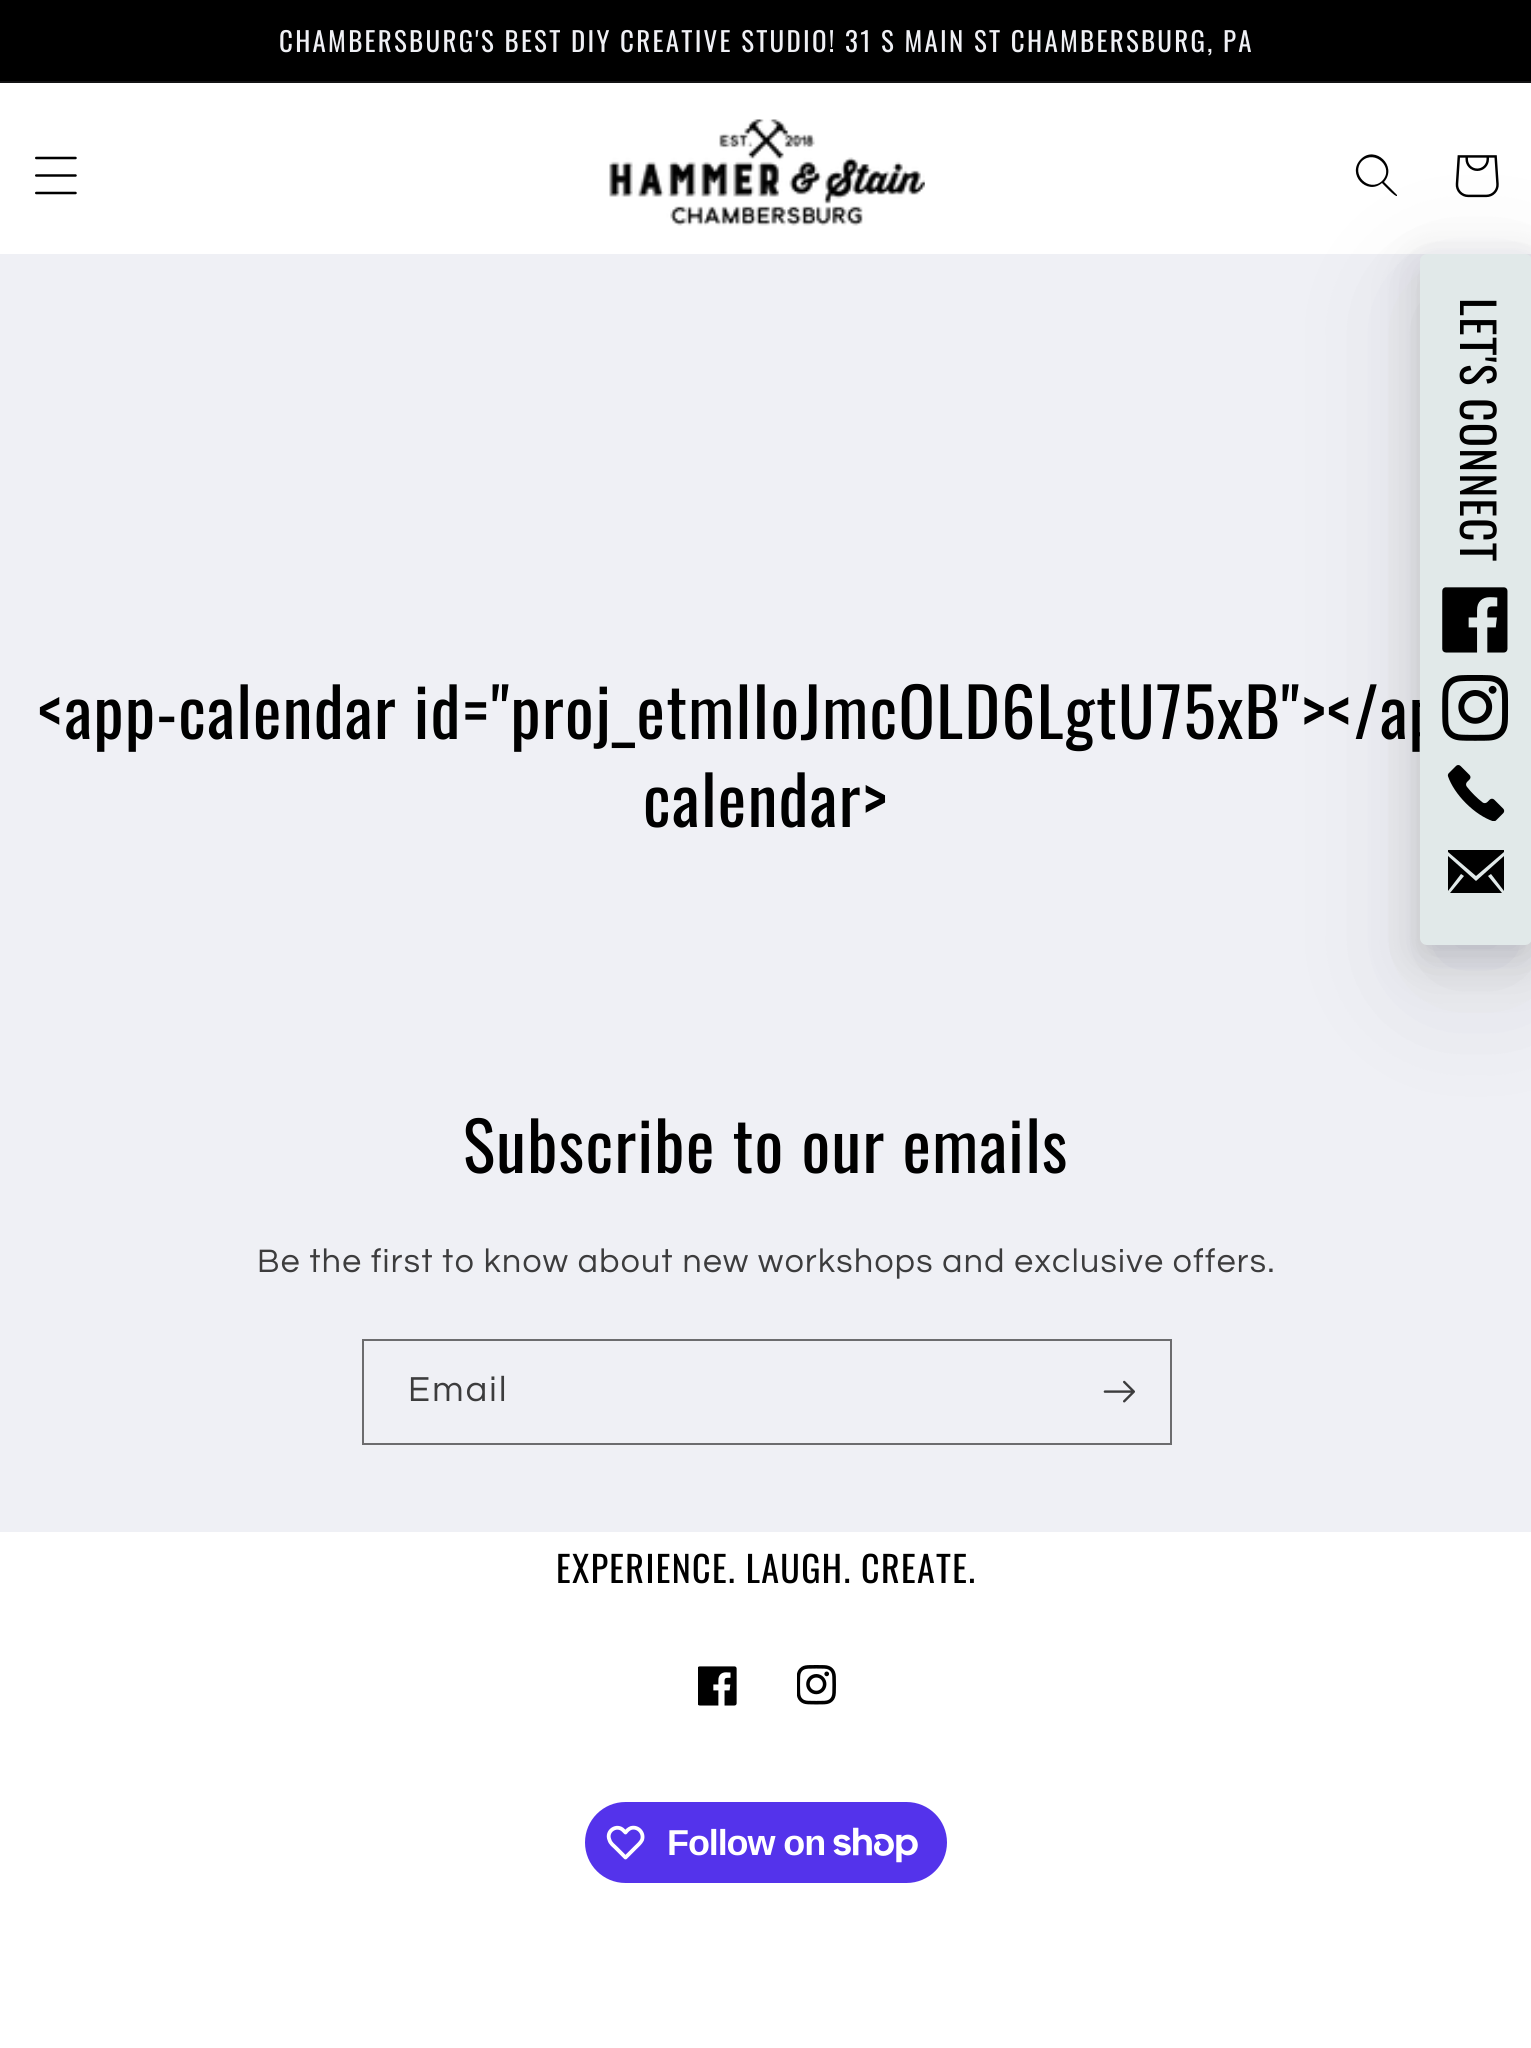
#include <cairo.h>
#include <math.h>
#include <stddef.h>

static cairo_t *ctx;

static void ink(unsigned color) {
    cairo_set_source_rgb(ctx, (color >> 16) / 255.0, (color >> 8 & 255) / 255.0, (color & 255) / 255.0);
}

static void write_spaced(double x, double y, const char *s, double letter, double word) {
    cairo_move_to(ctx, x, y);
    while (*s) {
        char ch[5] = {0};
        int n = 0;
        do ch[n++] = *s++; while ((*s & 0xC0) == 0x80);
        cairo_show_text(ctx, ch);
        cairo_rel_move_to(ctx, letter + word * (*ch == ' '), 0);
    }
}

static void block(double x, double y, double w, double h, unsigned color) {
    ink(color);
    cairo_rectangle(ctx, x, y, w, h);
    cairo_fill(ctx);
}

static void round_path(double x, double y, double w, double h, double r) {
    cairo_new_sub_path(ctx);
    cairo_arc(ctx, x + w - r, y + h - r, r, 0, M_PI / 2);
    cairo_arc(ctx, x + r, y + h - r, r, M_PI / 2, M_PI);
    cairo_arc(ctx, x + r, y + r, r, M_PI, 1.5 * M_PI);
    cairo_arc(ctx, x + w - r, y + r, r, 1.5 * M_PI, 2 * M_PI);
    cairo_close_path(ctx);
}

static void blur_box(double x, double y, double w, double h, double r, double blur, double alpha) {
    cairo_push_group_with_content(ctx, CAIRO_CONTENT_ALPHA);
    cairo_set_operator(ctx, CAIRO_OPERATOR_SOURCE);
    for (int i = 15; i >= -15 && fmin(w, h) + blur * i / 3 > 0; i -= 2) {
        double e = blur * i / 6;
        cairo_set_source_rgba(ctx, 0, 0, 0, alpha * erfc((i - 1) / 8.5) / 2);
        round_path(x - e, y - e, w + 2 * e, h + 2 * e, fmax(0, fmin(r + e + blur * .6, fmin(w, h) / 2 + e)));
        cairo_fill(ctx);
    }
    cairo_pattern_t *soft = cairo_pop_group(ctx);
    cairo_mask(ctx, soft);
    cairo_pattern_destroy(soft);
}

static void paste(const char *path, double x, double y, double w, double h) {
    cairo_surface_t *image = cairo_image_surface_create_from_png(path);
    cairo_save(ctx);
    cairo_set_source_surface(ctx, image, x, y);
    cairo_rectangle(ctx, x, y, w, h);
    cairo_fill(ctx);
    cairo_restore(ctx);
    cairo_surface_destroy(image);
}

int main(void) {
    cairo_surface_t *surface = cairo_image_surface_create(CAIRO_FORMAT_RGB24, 1531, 2048);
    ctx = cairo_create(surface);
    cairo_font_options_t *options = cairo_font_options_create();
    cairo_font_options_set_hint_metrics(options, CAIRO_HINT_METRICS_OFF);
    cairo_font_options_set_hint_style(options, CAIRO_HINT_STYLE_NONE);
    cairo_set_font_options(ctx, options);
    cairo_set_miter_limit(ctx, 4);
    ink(0xeff0f5);
    cairo_paint(ctx);
    block(0, 0, 1531, 81, 0x000000);
    block(0, 81, 1531, 2, 0x131314);
    cairo_select_font_face(ctx, "Oswald", CAIRO_FONT_SLANT_NORMAL, CAIRO_FONT_WEIGHT_NORMAL);
    cairo_set_font_size(ctx, 27);
    ink(0xeff0f5);
    write_spaced(279, 52, "CHAMBERSBURG'S BEST DIY CREATIVE STUDIO! 31 S MAIN ST CHAMBERSBURG, PA", 2.25, 0);
    block(0, 83, 1531, 171, 0xffffff);
    paste("pic1.png", 35, 156, 42, 39);
    paste("pic2.png", 609, 119, 316, 107);
    ink(0x000000);
    cairo_set_fill_rule(ctx, CAIRO_FILL_RULE_EVEN_ODD);
    cairo_new_path(ctx);
    cairo_move_to(ctx, 1382, 181);
    cairo_curve_to(ctx, 1369, 193, 1350, 174, 1362, 161);
    cairo_curve_to(ctx, 1375, 149, 1395, 168, 1382, 181);
    cairo_close_path(ctx);
    cairo_move_to(ctx, 1382, 183);
    cairo_curve_to(ctx, 1367, 196, 1346, 174, 1361, 159);
    cairo_curve_to(ctx, 1375, 145, 1398, 166, 1384, 182);
    cairo_line_to(ctx, 1397, 195);
    cairo_line_to(ctx, 1397, 196);
    cairo_curve_to(ctx, 1395, 197, 1384, 185, 1382, 183);
    cairo_close_path(ctx);
    cairo_fill(ctx);
    paste("pic3.png", 1455, 155, 44, 43);
    ink(0x11111a);
    blur_box(1420, 290, 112, 691, 7, 63, 0.1);
    blur_box(1420, 272, 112, 691, 7, 27, 0.1);
    blur_box(1420, 263, 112, 691, 7, 18, 0.1);
    cairo_set_font_size(ctx, 67.5);
    ink(0x000000);
    write_spaced(38, 739, "<app-calendar id=\"proj_etmlIoJmcOLD6LgtU75xB\"></ap", 1.35, 0);
    ink(0xe1e9e9);
    round_path(1420, 254, 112, 691, 7);
    cairo_fill(ctx);
    cairo_set_font_size(ctx, 45);
    ink(0x000000);
    cairo_save(ctx);
    cairo_translate(ctx, 1460, 298);
    cairo_rotate(ctx, 90 * M_PI / 180);
    write_spaced(0, 0, "LET'S CONNECT", 1.35, 0);
    cairo_restore(ctx);
    paste("pic4.png", 1442, 587, 66, 66);
    paste("pic5.png", 1442, 675, 67, 66);
    paste("pic6.png", 1447, 765, 58, 56);
    cairo_new_path(ctx);
    cairo_move_to(ctx, 1504, 856);
    cairo_line_to(ctx, 1504, 891);
    cairo_line_to(ctx, 1491, 874);
    cairo_line_to(ctx, 1488, 876);
    cairo_line_to(ctx, 1502, 893);
    cairo_line_to(ctx, 1450, 893);
    cairo_line_to(ctx, 1464, 876);
    cairo_line_to(ctx, 1461, 874);
    cairo_line_to(ctx, 1448, 891);
    cairo_line_to(ctx, 1448, 856);
    cairo_line_to(ctx, 1476, 881);
    cairo_close_path(ctx);
    cairo_move_to(ctx, 1504, 850);
    cairo_line_to(ctx, 1504, 852);
    cairo_line_to(ctx, 1476, 876);
    cairo_line_to(ctx, 1448, 852);
    cairo_line_to(ctx, 1448, 850);
    cairo_close_path(ctx);
    cairo_fill(ctx);
    cairo_set_font_size(ctx, 67.5);
    write_spaced(643, 827, "calendar>", 1.35, 0);
    write_spaced(463, 1173, "Subscribe to our emails", 1.35, 0);
    cairo_select_font_face(ctx, "Questrial", CAIRO_FONT_SLANT_NORMAL, CAIRO_FONT_WEIGHT_NORMAL);
    cairo_set_font_size(ctx, 33.75);
    ink(0x3c3c3d);
    write_spaced(257, 1272, "Be the first to know about new workshops and exclusive offers.", 1.35, 0);
    cairo_rectangle(ctx, 363, 1340, 808, 104);
    ink(0x6c6c6e);
    cairo_stroke(ctx);
    cairo_set_font_size(ctx, 36);
    ink(0x3c3c3d);
    write_spaced(408, 1401, "Email", 2.25, 0);
    paste("pic7.png", 1103, 1380, 32, 23);
    block(0, 1532, 1531, 516, 0xffffff);
    cairo_select_font_face(ctx, "Oswald", CAIRO_FONT_SLANT_NORMAL, CAIRO_FONT_WEIGHT_NORMAL);
    ink(0x000000);
    write_spaced(556, 1583, "EXPERIENCE. LAUGH. CREATE.", 1.35, 0);
    paste("pic8.png", 698, 1666, 39, 40);
    paste("pic9.png", 797, 1665, 39, 40);
    ink(0x5433eb);
    round_path(585, 1802, 362, 81, 40.5);
    cairo_fill(ctx);
    cairo_new_path(ctx);
    cairo_move_to(ctx, 623.5, 1830.5);
    cairo_line_to(ctx, 625.5, 1832.5);
    cairo_curve_to(ctx, 627, 1830.5, 628.5, 1829, 631, 1828);
    cairo_curve_to(ctx, 638, 1826, 644.5, 1833, 642, 1840);
    cairo_curve_to(ctx, 640.5, 1843, 637.5, 1845.5, 635, 1848);
    cairo_line_to(ctx, 625.5, 1857.5);
    cairo_line_to(ctx, 616, 1848);
    cairo_curve_to(ctx, 613.5, 1845.5, 610.5, 1843.5, 609.5, 1840);
    cairo_curve_to(ctx, 605.5, 1831, 617, 1823.5, 623.5, 1830.5);
    cairo_close_path(ctx);
    ink(0xffffff);
    cairo_set_line_width(ctx, 3.8);
    cairo_set_line_join(ctx, CAIRO_LINE_JOIN_ROUND);
    cairo_stroke(ctx);
    cairo_select_font_face(ctx, "Liberation Sans", CAIRO_FONT_SLANT_NORMAL, CAIRO_FONT_WEIGHT_BOLD);
    write_spaced(667, 1855, "Follow on", -1.1, 0);
    paste("pic10.png", 833, 1827, 85, 36);
    cairo_surface_write_to_png(surface, "screenshot.png");
    cairo_font_options_destroy(options);
    cairo_destroy(ctx);
    cairo_surface_destroy(surface);
    return 0;
}
